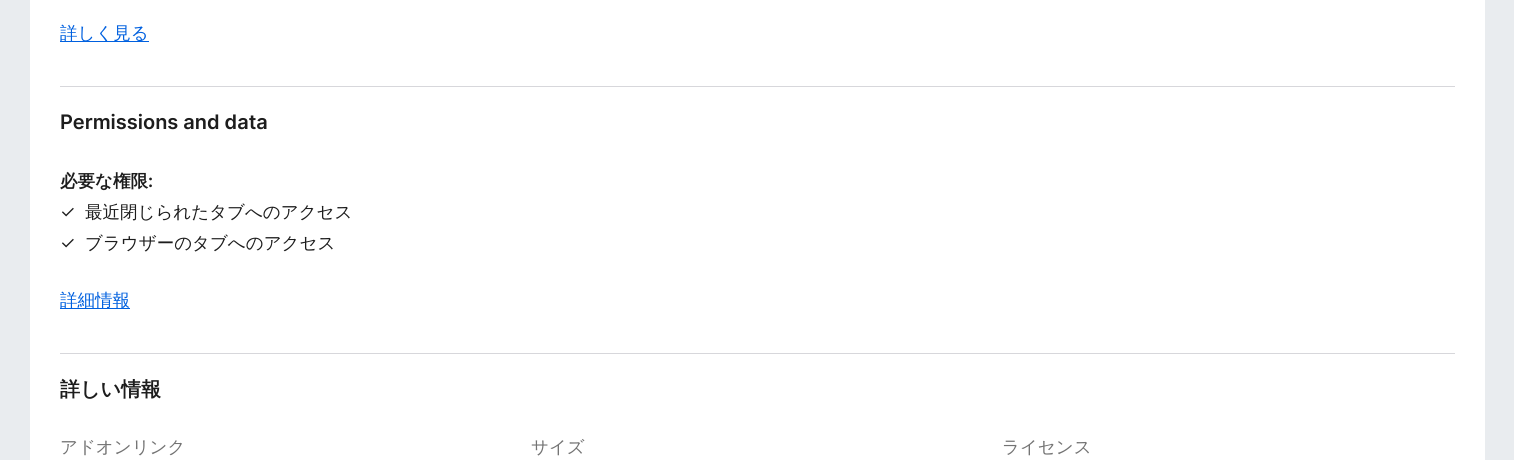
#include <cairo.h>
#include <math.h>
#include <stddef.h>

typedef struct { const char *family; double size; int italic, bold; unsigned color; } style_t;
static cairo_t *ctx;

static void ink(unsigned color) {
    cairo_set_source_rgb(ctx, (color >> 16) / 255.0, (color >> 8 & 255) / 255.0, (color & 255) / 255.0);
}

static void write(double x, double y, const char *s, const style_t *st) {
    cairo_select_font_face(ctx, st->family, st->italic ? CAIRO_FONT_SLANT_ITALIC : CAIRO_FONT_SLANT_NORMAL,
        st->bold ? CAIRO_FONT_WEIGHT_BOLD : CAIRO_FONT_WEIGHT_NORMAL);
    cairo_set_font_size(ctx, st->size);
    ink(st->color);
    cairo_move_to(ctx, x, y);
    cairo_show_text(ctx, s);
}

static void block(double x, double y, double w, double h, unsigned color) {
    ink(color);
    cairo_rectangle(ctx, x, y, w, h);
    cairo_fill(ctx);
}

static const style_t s1 = {"WenQuanYi Zen Hei Medium", 17.5, 0, 0, 0x0060df};
static const style_t s2 = {"Inter SemiBold", 20, 0, 0, 0x1d1d1d};
static const style_t s3 = {"WenQuanYi Zen Hei", 17.5, 0, 1, 0x1d1d1d};
static const style_t s4 = {"Inter SemiBold", 17.5, 0, 0, 0x1d1d1d};
static const style_t s5 = {"Inter", 17.5, 0, 0, 0x1d1d1d};
static const style_t s6 = {"WenQuanYi Zen Hei Medium", 17.5, 0, 0, 0x1d1d1d};
static const style_t s7 = {"WenQuanYi Zen Hei", 20, 0, 1, 0x1d1d1d};
static const style_t s8 = {"WenQuanYi Zen Hei Medium", 17.5, 0, 0, 0x737373};

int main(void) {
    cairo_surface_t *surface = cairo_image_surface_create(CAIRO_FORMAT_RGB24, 1514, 460);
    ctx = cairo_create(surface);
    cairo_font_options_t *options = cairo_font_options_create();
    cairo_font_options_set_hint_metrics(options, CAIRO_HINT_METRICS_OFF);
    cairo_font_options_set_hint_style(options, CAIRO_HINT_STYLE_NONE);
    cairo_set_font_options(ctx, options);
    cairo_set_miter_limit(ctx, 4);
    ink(0xe9ecef);
    cairo_paint(ctx);
    block(30, 0, 1455, 460, 0xffffff);
    block(60, 41, 89, 1, 0x0060df);
    write(60, 39, "詳しく見る", &s1);
    block(60, 86, 1395, 1, 0xd7d7db);
    write(60, 129, "Permissions and data", &s2);
    write(60, 187, "必要な権限", &s3);
    write(148, 187, ":", &s4);
    write(60, 218, "✓", &s5);
    write(85, 218, "最近閉じられたタブへのアクセス", &s6);
    write(60, 249, "✓", &s5);
    write(85, 249, "ブラウザーのタブへのアクセス", &s6);
    block(60, 308, 70, 1, 0x0060df);
    write(60, 306, "詳細情報", &s1);
    block(60, 353, 1395, 1, 0xd7d7db);
    write(60, 396, "詳しい情報", &s7);
    write(60, 453, "アドオンリンク", &s8);
    write(531, 453, "サイズ", &s8);
    write(1002, 453, "ライセンス", &s8);
    cairo_surface_write_to_png(surface, "screenshot.png");
    cairo_font_options_destroy(options);
    cairo_destroy(ctx);
    cairo_surface_destroy(surface);
    return 0;
}
